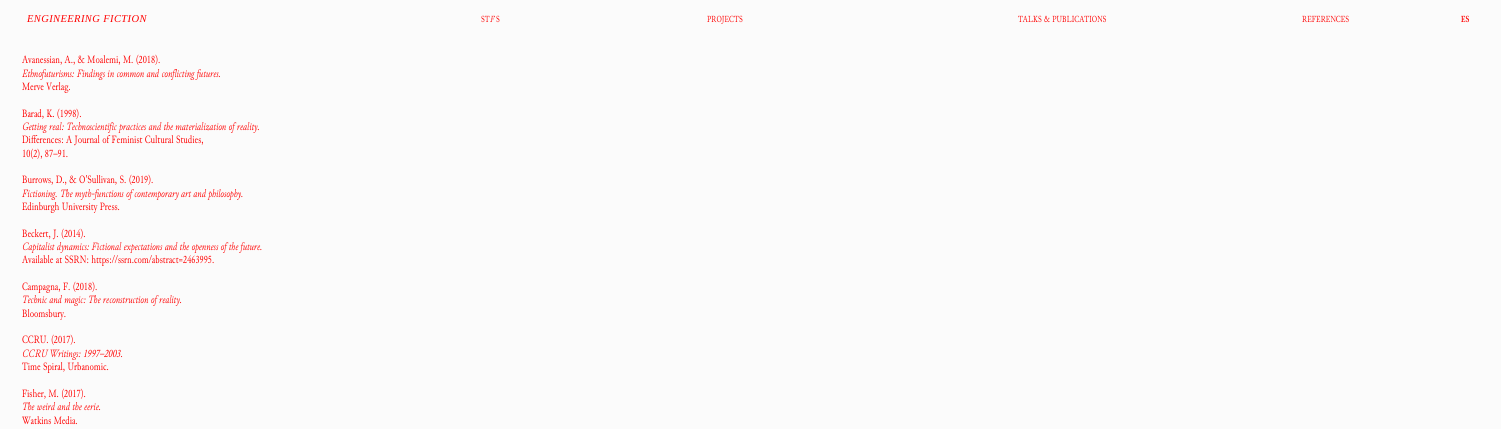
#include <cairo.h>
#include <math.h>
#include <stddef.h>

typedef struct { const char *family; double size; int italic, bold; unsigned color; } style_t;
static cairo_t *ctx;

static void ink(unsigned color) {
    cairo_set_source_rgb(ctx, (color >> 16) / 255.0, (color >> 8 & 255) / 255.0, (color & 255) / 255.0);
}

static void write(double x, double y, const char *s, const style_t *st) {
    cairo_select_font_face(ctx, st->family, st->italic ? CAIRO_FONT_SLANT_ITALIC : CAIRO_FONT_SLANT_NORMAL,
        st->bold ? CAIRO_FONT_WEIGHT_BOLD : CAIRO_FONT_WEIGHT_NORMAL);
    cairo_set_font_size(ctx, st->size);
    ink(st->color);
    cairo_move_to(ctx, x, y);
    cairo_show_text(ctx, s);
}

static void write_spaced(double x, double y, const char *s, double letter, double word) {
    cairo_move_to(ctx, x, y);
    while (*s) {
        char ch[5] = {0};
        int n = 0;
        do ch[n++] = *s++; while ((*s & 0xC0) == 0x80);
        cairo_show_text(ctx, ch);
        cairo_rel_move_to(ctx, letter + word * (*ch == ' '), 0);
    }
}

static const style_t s1 = {"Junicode", 11.1, 0, 0, 0xff0000};
static const style_t s2 = {"Junicode", 11.1, 1, 0, 0xff0000};

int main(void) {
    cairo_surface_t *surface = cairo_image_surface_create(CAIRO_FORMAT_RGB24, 1501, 429);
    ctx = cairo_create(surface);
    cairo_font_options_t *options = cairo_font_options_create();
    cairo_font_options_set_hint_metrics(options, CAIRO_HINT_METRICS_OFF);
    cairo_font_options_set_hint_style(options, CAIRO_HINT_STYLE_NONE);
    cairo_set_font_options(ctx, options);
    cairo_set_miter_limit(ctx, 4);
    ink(0xfbfbfb);
    cairo_paint(ctx);
    cairo_select_font_face(ctx, "Liberation Serif", CAIRO_FONT_SLANT_ITALIC, CAIRO_FONT_WEIGHT_NORMAL);
    cairo_set_font_size(ctx, 10.5);
    ink(0xff0000);
    write_spaced(27, 22, "ENGINEERING FICTION", 0.4, 0);
    cairo_select_font_face(ctx, "Junicode", CAIRO_FONT_SLANT_NORMAL, CAIRO_FONT_WEIGHT_NORMAL);
    cairo_set_font_size(ctx, 9.25);
    write_spaced(481, 22, "ST", 0.1, 0);
    cairo_select_font_face(ctx, "Junicode", CAIRO_FONT_SLANT_ITALIC, CAIRO_FONT_WEIGHT_NORMAL);
    write_spaced(490, 22, "F", 0.1, 0);
    cairo_select_font_face(ctx, "Junicode", CAIRO_FONT_SLANT_NORMAL, CAIRO_FONT_WEIGHT_NORMAL);
    write_spaced(496, 22, "S", 0.1, 0);
    write_spaced(707, 22, "PROJECTS", 0.1, 0);
    write_spaced(1018, 22, "TALKS & PUBLICATIONS", 0.1, 0);
    write_spaced(1302, 22, "REFERENCES", 0.1, 0);
    cairo_select_font_face(ctx, "Junicode", CAIRO_FONT_SLANT_NORMAL, CAIRO_FONT_WEIGHT_BOLD);
    write_spaced(1461, 22, "ES", 0.1, 0);
    write(22, 63, "Avanessian, A., & Moalemi, M. (2018).", &s1);
    write(22, 77, "Ethnofuturisms: Findings in common and conflicting futures.", &s2);
    write(22, 90, "Merve Verlag.", &s1);
    write(22, 117, "Barad, K. (1998).", &s1);
    write(22, 130, "Getting real: Technoscientific practices and the materialization of reality.", &s2);
    write(22, 143, "Differences: A Journal of Feminist Cultural Studies,", &s1);
    write(22, 157, "10(2), 87–91.", &s1);
    write(22, 183, "Burrows, D., & O'Sullivan, S. (2019).", &s1);
    write(22, 197, "Fictioning. The myth-functions of contemporary art and philosophy.", &s2);
    write(22, 210, "Edinburgh University Press.", &s1);
    write(22, 237, "Beckert, J. (2014).", &s1);
    write(22, 250, "Capitalist dynamics: Fictional expectations and the openness of the future.", &s2);
    write(22, 263, "Available at SSRN: https://ssrn.com/abstract=2463995.", &s1);
    write(22, 290, "Campagna, F. (2018).", &s1);
    write(22, 303, "Technic and magic: The reconstruction of reality.", &s2);
    write(22, 317, "Bloomsbury.", &s1);
    write(22, 343, "CCRU. (2017).", &s1);
    write(22, 357, "CCRU Writings: 1997–2003.", &s2);
    write(22, 370, "Time Spiral, Urbanomic.", &s1);
    write(22, 397, "Fisher, M. (2017).", &s1);
    write(22, 410, "The weird and the eerie.", &s2);
    write(22, 424, "Watkins Media.", &s1);
    cairo_surface_write_to_png(surface, "screenshot.png");
    cairo_font_options_destroy(options);
    cairo_destroy(ctx);
    cairo_surface_destroy(surface);
    return 0;
}
